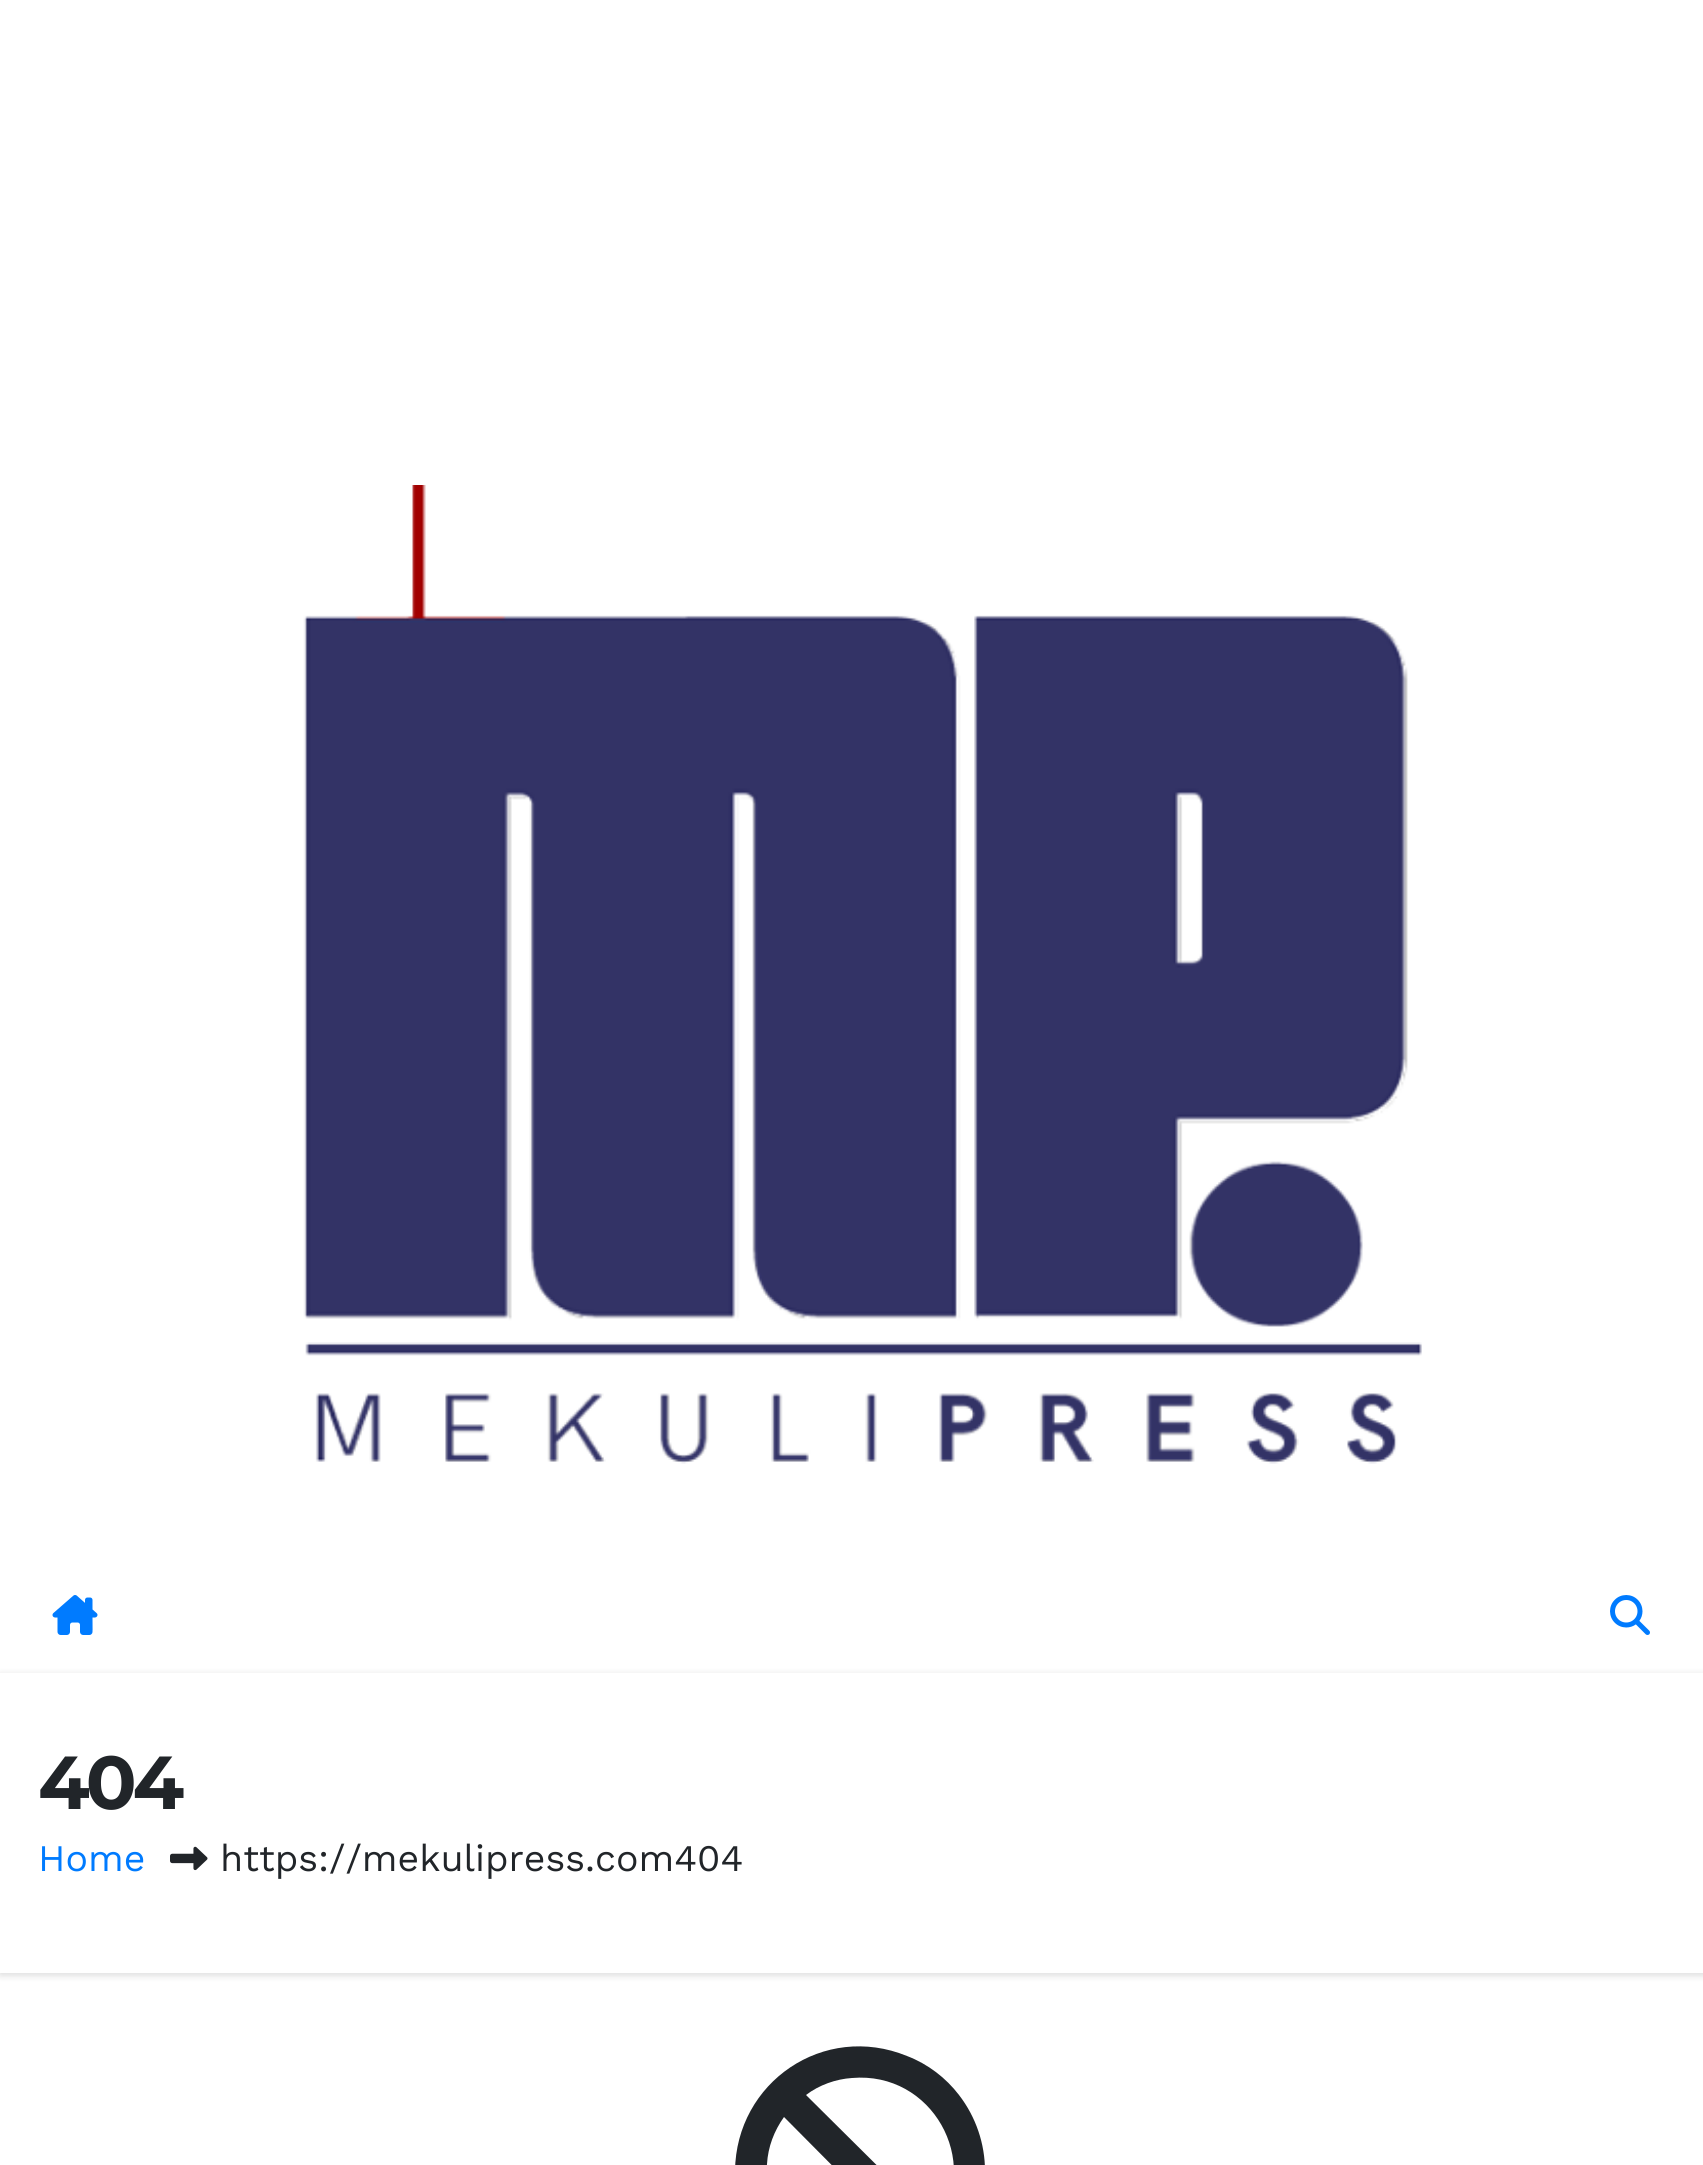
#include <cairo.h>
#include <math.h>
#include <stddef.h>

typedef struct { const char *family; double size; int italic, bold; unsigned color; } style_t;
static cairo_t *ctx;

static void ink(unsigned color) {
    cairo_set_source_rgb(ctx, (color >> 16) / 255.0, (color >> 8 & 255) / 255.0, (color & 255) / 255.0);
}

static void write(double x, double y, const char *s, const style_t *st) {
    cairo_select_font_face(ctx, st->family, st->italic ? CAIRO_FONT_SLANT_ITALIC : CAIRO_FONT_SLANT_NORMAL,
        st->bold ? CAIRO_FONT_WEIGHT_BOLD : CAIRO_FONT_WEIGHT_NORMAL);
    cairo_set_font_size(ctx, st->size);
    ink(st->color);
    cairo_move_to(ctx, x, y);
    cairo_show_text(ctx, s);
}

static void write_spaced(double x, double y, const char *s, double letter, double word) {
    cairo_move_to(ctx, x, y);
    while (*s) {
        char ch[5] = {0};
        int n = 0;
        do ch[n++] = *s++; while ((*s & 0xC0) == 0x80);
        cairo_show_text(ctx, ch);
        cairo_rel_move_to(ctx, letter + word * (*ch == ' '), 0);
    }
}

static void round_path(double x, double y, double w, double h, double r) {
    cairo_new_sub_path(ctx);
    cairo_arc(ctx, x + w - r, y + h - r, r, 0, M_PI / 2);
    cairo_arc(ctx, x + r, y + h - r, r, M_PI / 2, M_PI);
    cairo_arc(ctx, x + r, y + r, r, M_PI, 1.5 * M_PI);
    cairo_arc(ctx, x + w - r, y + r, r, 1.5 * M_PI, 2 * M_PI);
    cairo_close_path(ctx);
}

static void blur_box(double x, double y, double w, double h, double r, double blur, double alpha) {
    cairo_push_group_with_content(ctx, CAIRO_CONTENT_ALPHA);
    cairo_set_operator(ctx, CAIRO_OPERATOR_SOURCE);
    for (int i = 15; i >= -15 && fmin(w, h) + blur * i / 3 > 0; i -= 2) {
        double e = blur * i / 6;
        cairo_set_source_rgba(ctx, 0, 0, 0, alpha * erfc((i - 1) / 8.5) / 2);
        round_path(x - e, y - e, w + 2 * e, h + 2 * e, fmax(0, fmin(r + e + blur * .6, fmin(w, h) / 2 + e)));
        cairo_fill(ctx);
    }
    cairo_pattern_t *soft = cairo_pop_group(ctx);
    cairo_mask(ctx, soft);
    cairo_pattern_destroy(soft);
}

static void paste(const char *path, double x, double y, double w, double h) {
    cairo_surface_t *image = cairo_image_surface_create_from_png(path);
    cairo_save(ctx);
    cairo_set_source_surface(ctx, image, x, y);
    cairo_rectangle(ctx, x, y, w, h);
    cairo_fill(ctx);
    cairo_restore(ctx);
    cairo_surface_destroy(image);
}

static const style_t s1 = {"Work Sans", 37.5, 0, 0, 0x007bff};
static const style_t s2 = {"Work Sans", 37.5, 0, 0, 0x212529};

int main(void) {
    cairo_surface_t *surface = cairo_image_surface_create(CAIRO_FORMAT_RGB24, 1703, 2165);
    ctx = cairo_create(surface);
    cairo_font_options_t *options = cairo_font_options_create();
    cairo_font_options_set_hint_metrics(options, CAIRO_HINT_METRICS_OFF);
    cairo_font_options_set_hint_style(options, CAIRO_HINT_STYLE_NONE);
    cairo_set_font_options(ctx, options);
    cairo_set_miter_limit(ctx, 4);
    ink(0xffffff);
    cairo_paint(ctx);
    paste("pic1.png", 303, 485, 1119, 979);
    paste("pic2.png", 52, 1595, 46, 40);
    paste("pic3.png", 1610, 1595, 40, 40);
    cairo_save(ctx);
    cairo_set_fill_rule(ctx, CAIRO_FILL_RULE_EVEN_ODD);
    cairo_new_path(ctx);
    cairo_move_to(ctx, 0, 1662);
    cairo_line_to(ctx, 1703, 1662);
    cairo_line_to(ctx, 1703, 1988);
    cairo_line_to(ctx, 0, 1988);
    cairo_close_path(ctx);
    cairo_move_to(ctx, 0, 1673);
    cairo_line_to(ctx, 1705, 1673);
    cairo_line_to(ctx, 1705, 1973);
    cairo_line_to(ctx, 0, 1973);
    cairo_close_path(ctx);
    cairo_clip(ctx);
    ink(0x000000);
    blur_box(0, 1675, 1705, 300, 0, 4, 0.15);
    cairo_restore(ctx);
    cairo_select_font_face(ctx, "Montserrat", CAIRO_FONT_SLANT_NORMAL, CAIRO_FONT_WEIGHT_BOLD);
    cairo_set_font_size(ctx, 75);
    ink(0x212529);
    write_spaced(38, 1809, "404", -4, 0);
    write(38, 1871, "Home", &s1);
    paste("pic4.png", 170, 1846, 38, 25);
    write(220, 1871, "https://mekulipress.com404", &s2);
    cairo_new_path(ctx);
    cairo_move_to(ctx, 914, 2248);
    cairo_line_to(ctx, 784, 2117);
    cairo_curve_to(ctx, 774, 2131, 768, 2147, 767, 2164);
    cairo_curve_to(ctx, 760, 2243, 850, 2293, 914, 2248);
    cairo_close_path(ctx);
    cairo_move_to(ctx, 937, 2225);
    cairo_curve_to(ctx, 982, 2161, 932, 2071, 852, 2078);
    cairo_curve_to(ctx, 836, 2079, 819, 2085, 806, 2095);
    cairo_close_path(ctx);
    cairo_move_to(ctx, 735, 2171);
    cairo_curve_to(ctx, 736, 2082, 824, 2022, 907, 2056);
    cairo_curve_to(ctx, 928, 2064, 946, 2078, 959, 2095);
    cairo_curve_to(ctx, 976, 2117, 985, 2144, 985, 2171);
    cairo_curve_to(ctx, 985, 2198, 976, 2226, 959, 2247);
    cairo_curve_to(ctx, 946, 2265, 928, 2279, 907, 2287);
    cairo_curve_to(ctx, 824, 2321, 736, 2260, 735, 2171);
    cairo_close_path(ctx);
    cairo_fill(ctx);
    cairo_surface_write_to_png(surface, "screenshot.png");
    cairo_font_options_destroy(options);
    cairo_destroy(ctx);
    cairo_surface_destroy(surface);
    return 0;
}
